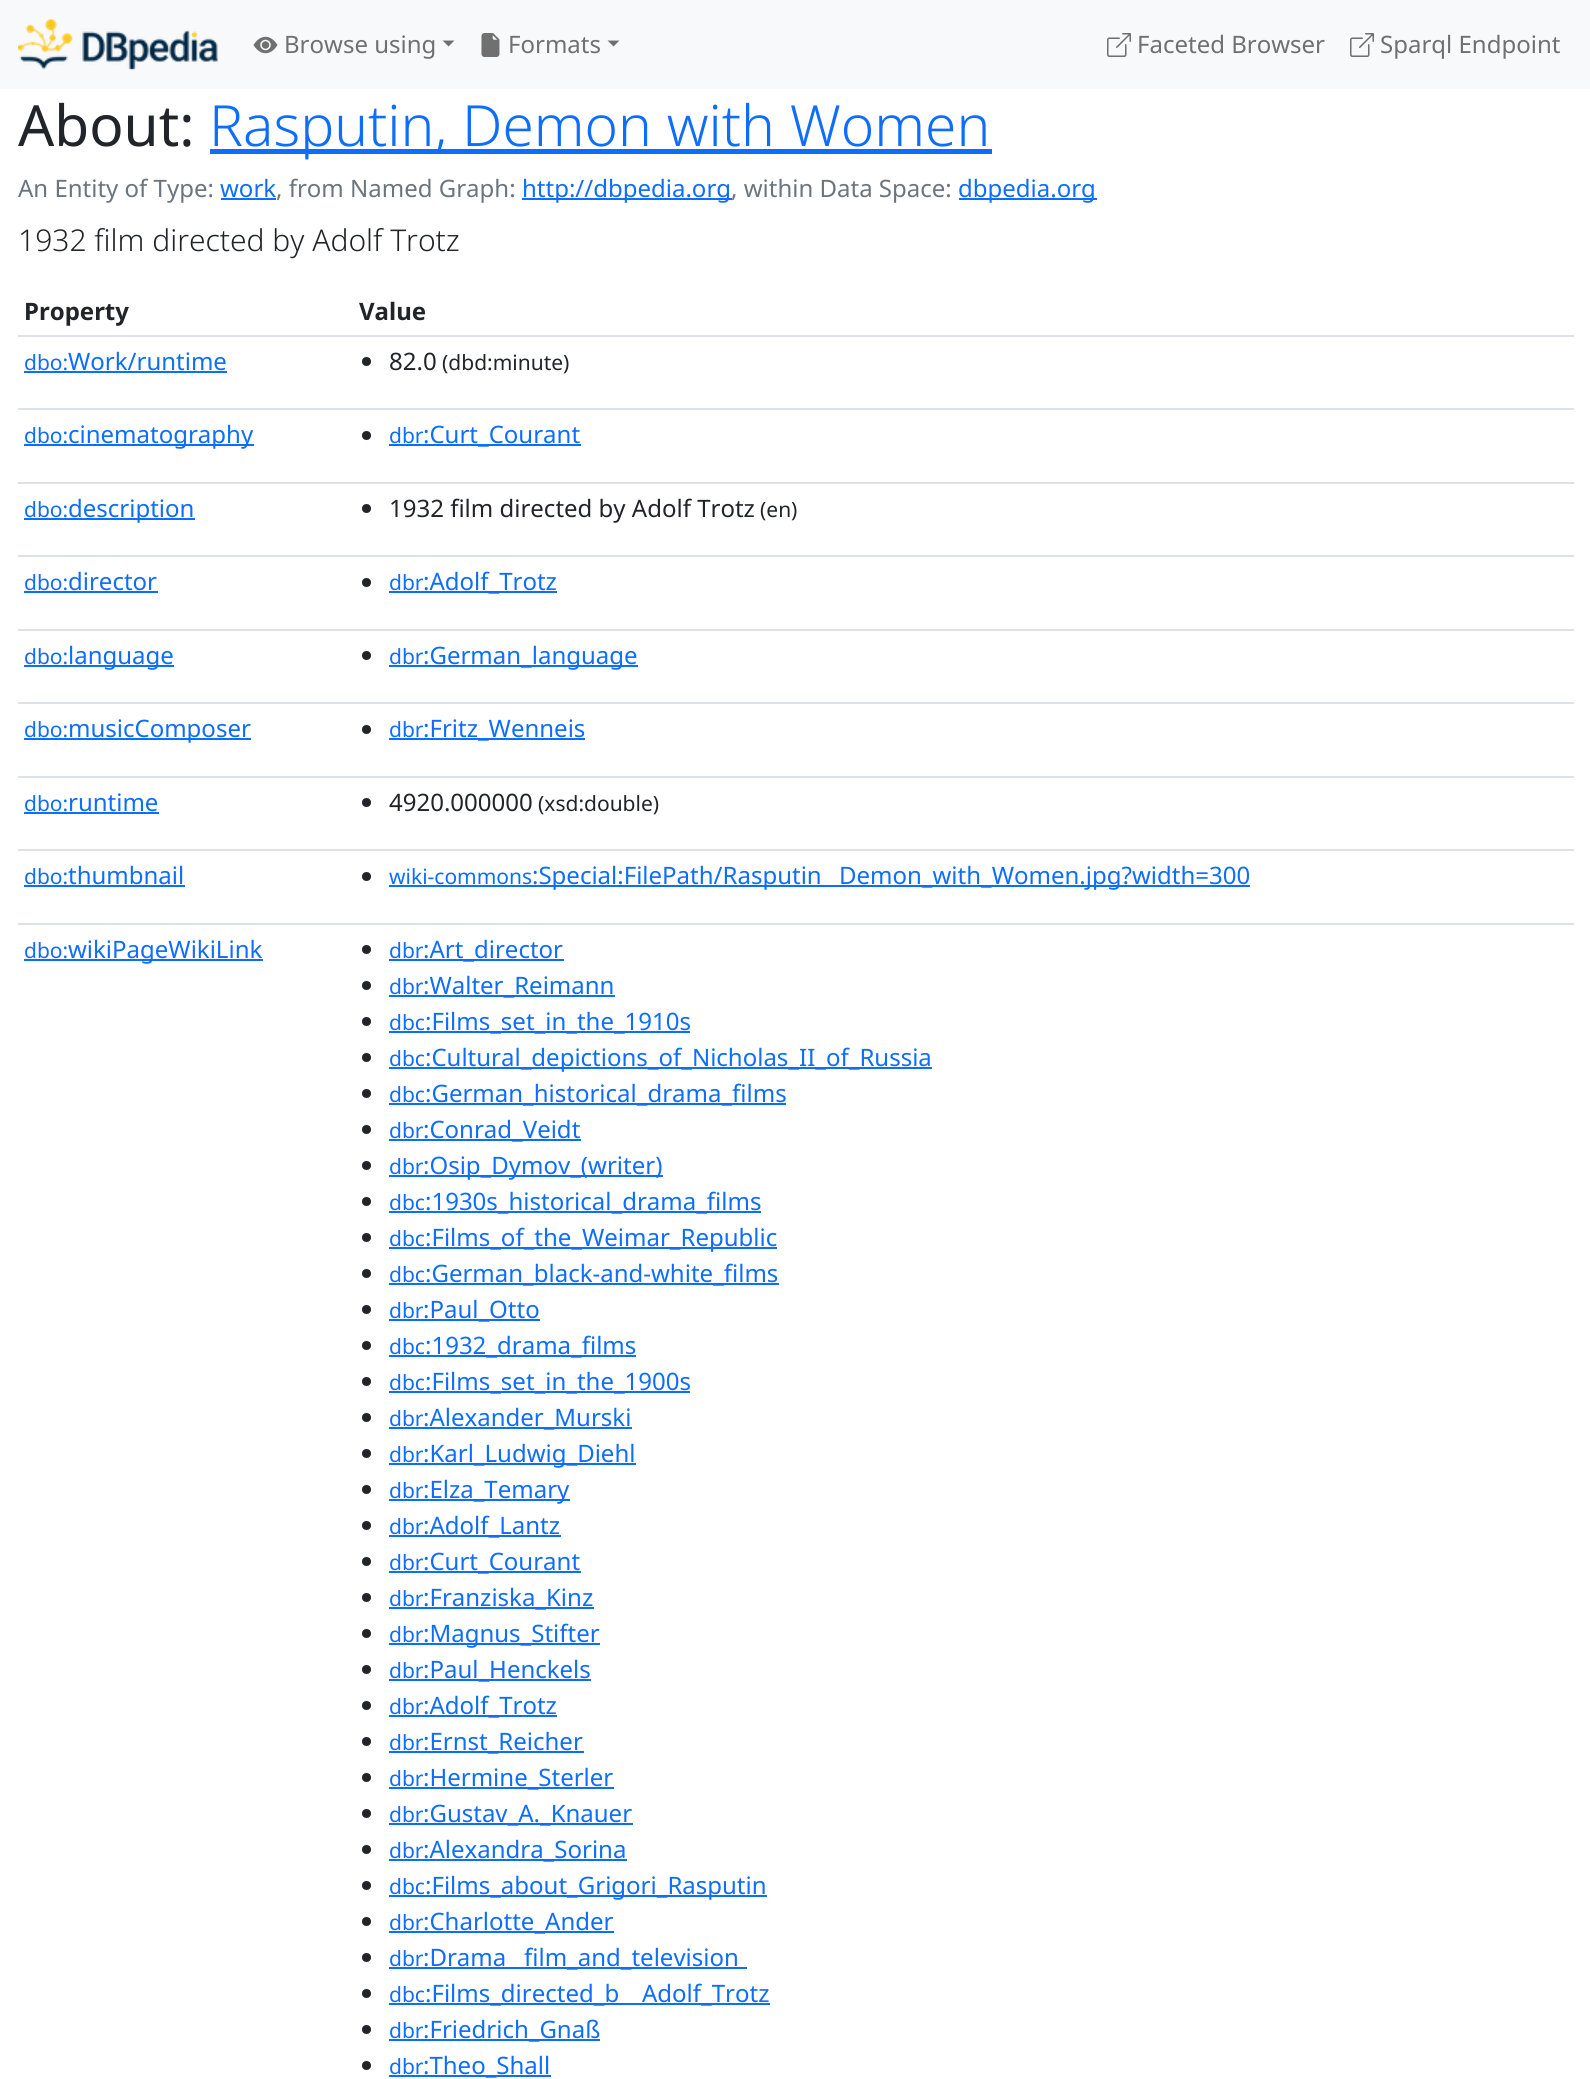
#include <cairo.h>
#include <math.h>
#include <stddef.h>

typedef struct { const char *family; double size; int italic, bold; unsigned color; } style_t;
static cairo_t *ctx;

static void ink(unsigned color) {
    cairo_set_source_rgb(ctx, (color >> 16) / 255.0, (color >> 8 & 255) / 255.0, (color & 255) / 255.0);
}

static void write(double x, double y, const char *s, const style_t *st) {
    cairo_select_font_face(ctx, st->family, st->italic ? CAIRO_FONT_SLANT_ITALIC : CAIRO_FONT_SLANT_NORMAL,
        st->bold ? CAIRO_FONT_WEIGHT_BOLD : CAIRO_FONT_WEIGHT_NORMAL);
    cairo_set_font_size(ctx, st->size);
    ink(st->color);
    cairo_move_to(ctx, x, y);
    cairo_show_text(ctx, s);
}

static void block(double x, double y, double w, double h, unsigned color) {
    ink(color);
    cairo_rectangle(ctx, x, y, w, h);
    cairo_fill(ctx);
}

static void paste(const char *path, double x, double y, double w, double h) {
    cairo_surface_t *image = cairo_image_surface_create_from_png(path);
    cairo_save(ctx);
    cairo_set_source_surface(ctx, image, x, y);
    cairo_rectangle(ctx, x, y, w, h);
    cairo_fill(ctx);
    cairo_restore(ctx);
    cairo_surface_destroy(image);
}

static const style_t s1 = {"Noto Sans", 24, 0, 0, 0x707071};
static const style_t s2 = {"Noto Sans", 56.8, 0, 0, 0x212529};
static const style_t s3 = {"Noto Sans Light", 56.8, 0, 0, 0x0d6efd};
static const style_t s4 = {"Noto Sans", 24, 0, 0, 0x6c757d};
static const style_t s5 = {"Noto Sans", 24, 0, 0, 0x0d6efd};
static const style_t s6 = {"Noto Sans Light", 30, 0, 0, 0x212529};
static const style_t s7 = {"Noto Sans", 24, 0, 1, 0x212529};
static const style_t s8 = {"Noto Sans", 21, 0, 0, 0x0d6efd};
static const style_t s9 = {"Noto Sans", 24, 0, 0, 0x212529};
static const style_t s10 = {"Noto Sans", 21, 0, 0, 0x212529};

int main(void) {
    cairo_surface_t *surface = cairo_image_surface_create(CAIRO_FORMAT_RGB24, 1590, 2079);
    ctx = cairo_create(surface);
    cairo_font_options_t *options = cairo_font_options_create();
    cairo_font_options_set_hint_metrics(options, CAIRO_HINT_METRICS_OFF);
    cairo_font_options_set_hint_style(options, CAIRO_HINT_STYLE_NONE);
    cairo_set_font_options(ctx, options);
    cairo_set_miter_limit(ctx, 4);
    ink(0xffffff);
    cairo_paint(ctx);
    block(0, 0, 1590, 89, 0xf8f9fa);
    paste("pic1.png", 18, 19, 200, 51);
    paste("pic2.png", 253, 36, 25, 18);
    write(284, 53, "Browse using", &s1);
    cairo_new_path(ctx);
    cairo_move_to(ctx, 442.5, 40.5);
    cairo_line_to(ctx, 454.5, 40.5);
    cairo_line_to(ctx, 448.5, 46.5);
    cairo_close_path(ctx);
    cairo_fill(ctx);
    paste("pic3.png", 481, 33, 19, 24);
    write(508, 53, "Formats", &s1);
    cairo_new_path(ctx);
    cairo_move_to(ctx, 607.5, 40.5);
    cairo_line_to(ctx, 619.5, 40.5);
    cairo_line_to(ctx, 613.5, 46.5);
    cairo_close_path(ctx);
    cairo_fill(ctx);
    paste("pic4.png", 1107, 33, 24, 24);
    write(1137, 53, "Faceted Browser", &s1);
    paste("pic4.png", 1350, 33, 24, 24);
    write(1380, 53, "Sparql Endpoint", &s1);
    write(18, 146, "About:", &s2);
    block(210, 149, 782, 5, 0x0d6efd);
    write(209, 146, "Rasputin, Demon with Women", &s3);
    write(18, 197, "An Entity of Type:", &s4);
    write(220, 197, "work", &s5);
    write(276, 197, ", from Named Graph:", &s4);
    block(221, 198, 55, 2, 0x0d6efd);
    block(522, 198, 210, 2, 0x0d6efd);
    write(522, 197, "http://dbpedia.org", &s5);
    write(731, 197, ", within Data Space:", &s4);
    block(959, 198, 138, 2, 0x0d6efd);
    write(958, 197, "dbpedia.org", &s5);
    write(18, 251, "1932 film directed by Adolf Trotz", &s6);
    write(24, 320, "Property", &s7);
    block(18, 335, 1556, 2, 0xdee2e6);
    write(359, 320, "Value", &s7);
    write(24, 370, "dbo:", &s8);
    block(24, 371, 203, 2, 0x0d6efd);
    write(68, 370, "Work/runtime", &s5);
    block(18, 408, 1556, 2, 0xdee2e6);
    ink(0x212529);
    cairo_new_path(ctx);
    cairo_arc(ctx, 366.5, 361.5, 4.5, 0, 2 * M_PI);
    cairo_fill(ctx);
    write(389, 370, "82.0", &s9);
    write(442, 370, "(dbd:minute)", &s10);
    write(24, 443, "dbo:", &s8);
    block(24, 444, 230, 2, 0x0d6efd);
    write(68, 443, "cinematography", &s5);
    block(18, 482, 1556, 2, 0xdee2e6);
    ink(0x212529);
    cairo_new_path(ctx);
    cairo_arc(ctx, 366.5, 435.5, 4.5, 0, 2 * M_PI);
    cairo_fill(ctx);
    write(389, 443, "dbr", &s8);
    block(389, 444, 192, 2, 0x0d6efd);
    write(423, 443, ":Curt_Courant", &s5);
    write(24, 517, "dbo:", &s8);
    block(24, 518, 171, 2, 0x0d6efd);
    write(68, 517, "description", &s5);
    block(18, 555, 1556, 2, 0xdee2e6);
    ink(0x212529);
    cairo_new_path(ctx);
    cairo_arc(ctx, 366.5, 508.5, 4.5, 0, 2 * M_PI);
    cairo_fill(ctx);
    write(389, 517, "1932 film directed by Adolf Trotz", &s9);
    write(760, 517, "(en)", &s10);
    write(24, 590, "dbo:", &s8);
    block(24, 591, 134, 2, 0x0d6efd);
    write(68, 590, "director", &s5);
    block(18, 629, 1556, 2, 0xdee2e6);
    ink(0x212529);
    cairo_new_path(ctx);
    cairo_arc(ctx, 366.5, 582.5, 4.5, 0, 2 * M_PI);
    cairo_fill(ctx);
    write(389, 590, "dbr", &s8);
    block(389, 591, 168, 2, 0x0d6efd);
    write(423, 590, ":Adolf_Trotz", &s5);
    write(24, 664, "dbo:", &s8);
    block(24, 665, 150, 2, 0x0d6efd);
    write(68, 664, "language", &s5);
    block(18, 702, 1556, 2, 0xdee2e6);
    ink(0x212529);
    cairo_new_path(ctx);
    cairo_arc(ctx, 366.5, 655.5, 4.5, 0, 2 * M_PI);
    cairo_fill(ctx);
    write(389, 664, "dbr", &s8);
    block(389, 665, 249, 2, 0x0d6efd);
    write(423, 664, ":German_language", &s5);
    write(24, 737, "dbo:", &s8);
    block(24, 738, 227, 2, 0x0d6efd);
    write(68, 737, "musicComposer", &s5);
    block(18, 776, 1556, 2, 0xdee2e6);
    ink(0x212529);
    cairo_new_path(ctx);
    cairo_arc(ctx, 366.5, 729.5, 4.5, 0, 2 * M_PI);
    cairo_fill(ctx);
    write(389, 737, "dbr", &s8);
    block(389, 738, 196, 2, 0x0d6efd);
    write(423, 737, ":Fritz_Wenneis", &s5);
    write(24, 811, "dbo:", &s8);
    block(24, 812, 135, 2, 0x0d6efd);
    write(68, 811, "runtime", &s5);
    block(18, 849, 1556, 2, 0xdee2e6);
    ink(0x212529);
    cairo_new_path(ctx);
    cairo_arc(ctx, 366.5, 802.5, 4.5, 0, 2 * M_PI);
    cairo_fill(ctx);
    write(389, 811, "4920.000000", &s9);
    write(538, 811, "(xsd:double)", &s10);
    write(24, 884, "dbo:", &s8);
    block(24, 885, 161, 2, 0x0d6efd);
    write(68, 884, "thumbnail", &s5);
    block(18, 923, 1556, 2, 0xdee2e6);
    ink(0x212529);
    cairo_new_path(ctx);
    cairo_arc(ctx, 366.5, 876.5, 4.5, 0, 2 * M_PI);
    cairo_fill(ctx);
    write(389, 884, "wiki-commons", &s8);
    block(389, 885, 861, 2, 0x0d6efd);
    write(532, 884, ":Special:FilePath/Rasputin", &s5);
    write(839, 884, "Demon_with_Women.jpg?width=300", &s5);
    write(24, 958, "dbo:", &s8);
    block(24, 959, 239, 2, 0x0d6efd);
    write(68, 958, "wikiPageWikiLink", &s5);
    ink(0x212529);
    cairo_new_path(ctx);
    cairo_arc(ctx, 366.5, 949.5, 4.5, 0, 2 * M_PI);
    cairo_fill(ctx);
    write(389, 958, "dbr", &s8);
    block(389, 959, 175, 2, 0x0d6efd);
    write(423, 958, ":Art_director", &s5);
    ink(0x212529);
    cairo_new_path(ctx);
    cairo_arc(ctx, 366.5, 985.5, 4.5, 0, 2 * M_PI);
    cairo_fill(ctx);
    write(389, 994, "dbr", &s8);
    block(389, 995, 226, 2, 0x0d6efd);
    write(423, 994, ":Walter_Reimann", &s5);
    ink(0x212529);
    cairo_new_path(ctx);
    cairo_arc(ctx, 366.5, 1021.5, 4.5, 0, 2 * M_PI);
    cairo_fill(ctx);
    write(389, 1030, "dbc", &s8);
    block(389, 1031, 301, 2, 0x0d6efd);
    write(425, 1030, ":Films_set_in_the_1910s", &s5);
    ink(0x212529);
    cairo_new_path(ctx);
    cairo_arc(ctx, 366.5, 1057.5, 4.5, 0, 2 * M_PI);
    cairo_fill(ctx);
    write(389, 1066, "dbc", &s8);
    block(389, 1067, 543, 2, 0x0d6efd);
    write(425, 1066, ":Cultural_depictions_of_Nicholas_II_of_Russia", &s5);
    ink(0x212529);
    cairo_new_path(ctx);
    cairo_arc(ctx, 366.5, 1093.5, 4.5, 0, 2 * M_PI);
    cairo_fill(ctx);
    write(389, 1102, "dbc", &s8);
    block(389, 1103, 397, 2, 0x0d6efd);
    write(425, 1102, ":German_historical_drama_films", &s5);
    ink(0x212529);
    cairo_new_path(ctx);
    cairo_arc(ctx, 366.5, 1129.5, 4.5, 0, 2 * M_PI);
    cairo_fill(ctx);
    write(389, 1138, "dbr", &s8);
    block(389, 1139, 192, 2, 0x0d6efd);
    write(423, 1138, ":Conrad_Veidt", &s5);
    ink(0x212529);
    cairo_new_path(ctx);
    cairo_arc(ctx, 366.5, 1165.5, 4.5, 0, 2 * M_PI);
    cairo_fill(ctx);
    write(389, 1174, "dbr", &s8);
    block(389, 1175, 274, 2, 0x0d6efd);
    write(423, 1174, ":Osip_Dymov_(writer)", &s5);
    ink(0x212529);
    cairo_new_path(ctx);
    cairo_arc(ctx, 366.5, 1201.5, 4.5, 0, 2 * M_PI);
    cairo_fill(ctx);
    write(389, 1210, "dbc", &s8);
    block(389, 1211, 372, 2, 0x0d6efd);
    write(425, 1210, ":1930s_historical_drama_films", &s5);
    ink(0x212529);
    cairo_new_path(ctx);
    cairo_arc(ctx, 366.5, 1237.5, 4.5, 0, 2 * M_PI);
    cairo_fill(ctx);
    write(389, 1246, "dbc", &s8);
    block(389, 1247, 388, 2, 0x0d6efd);
    write(425, 1246, ":Films_of_the_Weimar_Republic", &s5);
    ink(0x212529);
    cairo_new_path(ctx);
    cairo_arc(ctx, 366.5, 1273.5, 4.5, 0, 2 * M_PI);
    cairo_fill(ctx);
    write(389, 1282, "dbc", &s8);
    block(389, 1283, 390, 2, 0x0d6efd);
    write(425, 1282, ":German_black-and-white_films", &s5);
    ink(0x212529);
    cairo_new_path(ctx);
    cairo_arc(ctx, 366.5, 1309.5, 4.5, 0, 2 * M_PI);
    cairo_fill(ctx);
    write(389, 1318, "dbr", &s8);
    block(389, 1319, 151, 2, 0x0d6efd);
    write(423, 1318, ":Paul_Otto", &s5);
    ink(0x212529);
    cairo_new_path(ctx);
    cairo_arc(ctx, 366.5, 1345.5, 4.5, 0, 2 * M_PI);
    cairo_fill(ctx);
    write(389, 1354, "dbc", &s8);
    block(389, 1355, 247, 2, 0x0d6efd);
    write(425, 1354, ":1932_drama_films", &s5);
    ink(0x212529);
    cairo_new_path(ctx);
    cairo_arc(ctx, 366.5, 1381.5, 4.5, 0, 2 * M_PI);
    cairo_fill(ctx);
    write(389, 1390, "dbc", &s8);
    block(389, 1391, 301, 2, 0x0d6efd);
    write(425, 1390, ":Films_set_in_the_1900s", &s5);
    ink(0x212529);
    cairo_new_path(ctx);
    cairo_arc(ctx, 366.5, 1417.5, 4.5, 0, 2 * M_PI);
    cairo_fill(ctx);
    write(389, 1426, "dbr", &s8);
    block(389, 1427, 243, 2, 0x0d6efd);
    write(423, 1426, ":Alexander_Murski", &s5);
    ink(0x212529);
    cairo_new_path(ctx);
    cairo_arc(ctx, 366.5, 1453.5, 4.5, 0, 2 * M_PI);
    cairo_fill(ctx);
    write(389, 1462, "dbr", &s8);
    block(389, 1463, 247, 2, 0x0d6efd);
    write(423, 1462, ":Karl_Ludwig_Diehl", &s5);
    ink(0x212529);
    cairo_new_path(ctx);
    cairo_arc(ctx, 366.5, 1489.5, 4.5, 0, 2 * M_PI);
    cairo_fill(ctx);
    write(389, 1498, "dbr", &s8);
    block(389, 1499, 181, 2, 0x0d6efd);
    write(423, 1498, ":Elza_Temary", &s5);
    ink(0x212529);
    cairo_new_path(ctx);
    cairo_arc(ctx, 366.5, 1525.5, 4.5, 0, 2 * M_PI);
    cairo_fill(ctx);
    write(389, 1534, "dbr", &s8);
    block(389, 1535, 172, 2, 0x0d6efd);
    write(423, 1534, ":Adolf_Lantz", &s5);
    ink(0x212529);
    cairo_new_path(ctx);
    cairo_arc(ctx, 366.5, 1561.5, 4.5, 0, 2 * M_PI);
    cairo_fill(ctx);
    write(389, 1570, "dbr", &s8);
    block(389, 1571, 192, 2, 0x0d6efd);
    write(423, 1570, ":Curt_Courant", &s5);
    ink(0x212529);
    cairo_new_path(ctx);
    cairo_arc(ctx, 366.5, 1597.5, 4.5, 0, 2 * M_PI);
    cairo_fill(ctx);
    write(389, 1606, "dbr", &s8);
    block(389, 1607, 205, 2, 0x0d6efd);
    write(423, 1606, ":Franziska_Kinz", &s5);
    ink(0x212529);
    cairo_new_path(ctx);
    cairo_arc(ctx, 366.5, 1633.5, 4.5, 0, 2 * M_PI);
    cairo_fill(ctx);
    write(389, 1642, "dbr", &s8);
    block(389, 1643, 211, 2, 0x0d6efd);
    write(423, 1642, ":Magnus_Stifter", &s5);
    ink(0x212529);
    cairo_new_path(ctx);
    cairo_arc(ctx, 366.5, 1669.5, 4.5, 0, 2 * M_PI);
    cairo_fill(ctx);
    write(389, 1678, "dbr", &s8);
    block(389, 1679, 202, 2, 0x0d6efd);
    write(423, 1678, ":Paul_Henckels", &s5);
    ink(0x212529);
    cairo_new_path(ctx);
    cairo_arc(ctx, 366.5, 1705.5, 4.5, 0, 2 * M_PI);
    cairo_fill(ctx);
    write(389, 1714, "dbr", &s8);
    block(389, 1715, 168, 2, 0x0d6efd);
    write(423, 1714, ":Adolf_Trotz", &s5);
    ink(0x212529);
    cairo_new_path(ctx);
    cairo_arc(ctx, 366.5, 1741.5, 4.5, 0, 2 * M_PI);
    cairo_fill(ctx);
    write(389, 1750, "dbr", &s8);
    block(389, 1751, 195, 2, 0x0d6efd);
    write(423, 1750, ":Ernst_Reicher", &s5);
    ink(0x212529);
    cairo_new_path(ctx);
    cairo_arc(ctx, 366.5, 1777.5, 4.5, 0, 2 * M_PI);
    cairo_fill(ctx);
    write(389, 1786, "dbr", &s8);
    block(389, 1787, 225, 2, 0x0d6efd);
    write(423, 1786, ":Hermine_Sterler", &s5);
    ink(0x212529);
    cairo_new_path(ctx);
    cairo_arc(ctx, 366.5, 1813.5, 4.5, 0, 2 * M_PI);
    cairo_fill(ctx);
    write(389, 1822, "dbr", &s8);
    block(389, 1823, 244, 2, 0x0d6efd);
    write(423, 1822, ":Gustav_A._Knauer", &s5);
    ink(0x212529);
    cairo_new_path(ctx);
    cairo_arc(ctx, 366.5, 1849.5, 4.5, 0, 2 * M_PI);
    cairo_fill(ctx);
    write(389, 1858, "dbr", &s8);
    block(389, 1859, 238, 2, 0x0d6efd);
    write(423, 1858, ":Alexandra_Sorina", &s5);
    ink(0x212529);
    cairo_new_path(ctx);
    cairo_arc(ctx, 366.5, 1885.5, 4.5, 0, 2 * M_PI);
    cairo_fill(ctx);
    write(389, 1894, "dbc", &s8);
    block(389, 1895, 378, 2, 0x0d6efd);
    write(425, 1894, ":Films_about_Grigori_Rasputin", &s5);
    ink(0x212529);
    cairo_new_path(ctx);
    cairo_arc(ctx, 366.5, 1921.5, 4.5, 0, 2 * M_PI);
    cairo_fill(ctx);
    write(389, 1930, "dbr", &s8);
    block(389, 1931, 225, 2, 0x0d6efd);
    write(423, 1930, ":Charlotte_Ander", &s5);
    ink(0x212529);
    cairo_new_path(ctx);
    cairo_arc(ctx, 366.5, 1957.5, 4.5, 0, 2 * M_PI);
    cairo_fill(ctx);
    write(389, 1966, "dbr", &s8);
    block(389, 1967, 358, 2, 0x0d6efd);
    write(423, 1966, ":Drama", &s5);
    write(524, 1966, "film_and_television", &s5);
    ink(0x212529);
    cairo_new_path(ctx);
    cairo_arc(ctx, 366.5, 1993.5, 4.5, 0, 2 * M_PI);
    cairo_fill(ctx);
    write(389, 2002, "dbc", &s8);
    block(389, 2003, 381, 2, 0x0d6efd);
    write(425, 2002, ":Films_directed_b", &s5);
    write(642, 2002, "Adolf_Trotz", &s5);
    ink(0x212529);
    cairo_new_path(ctx);
    cairo_arc(ctx, 366.5, 2029.5, 4.5, 0, 2 * M_PI);
    cairo_fill(ctx);
    write(389, 2038, "dbr", &s8);
    block(389, 2039, 211, 2, 0x0d6efd);
    write(423, 2038, ":Friedrich_Gnaß", &s5);
    ink(0x212529);
    cairo_new_path(ctx);
    cairo_arc(ctx, 366.5, 2065.5, 4.5, 0, 2 * M_PI);
    cairo_fill(ctx);
    write(389, 2074, "dbr", &s8);
    block(389, 2075, 162, 2, 0x0d6efd);
    write(423, 2074, ":Theo_Shall", &s5);
    cairo_surface_write_to_png(surface, "screenshot.png");
    cairo_font_options_destroy(options);
    cairo_destroy(ctx);
    cairo_surface_destroy(surface);
    return 0;
}
